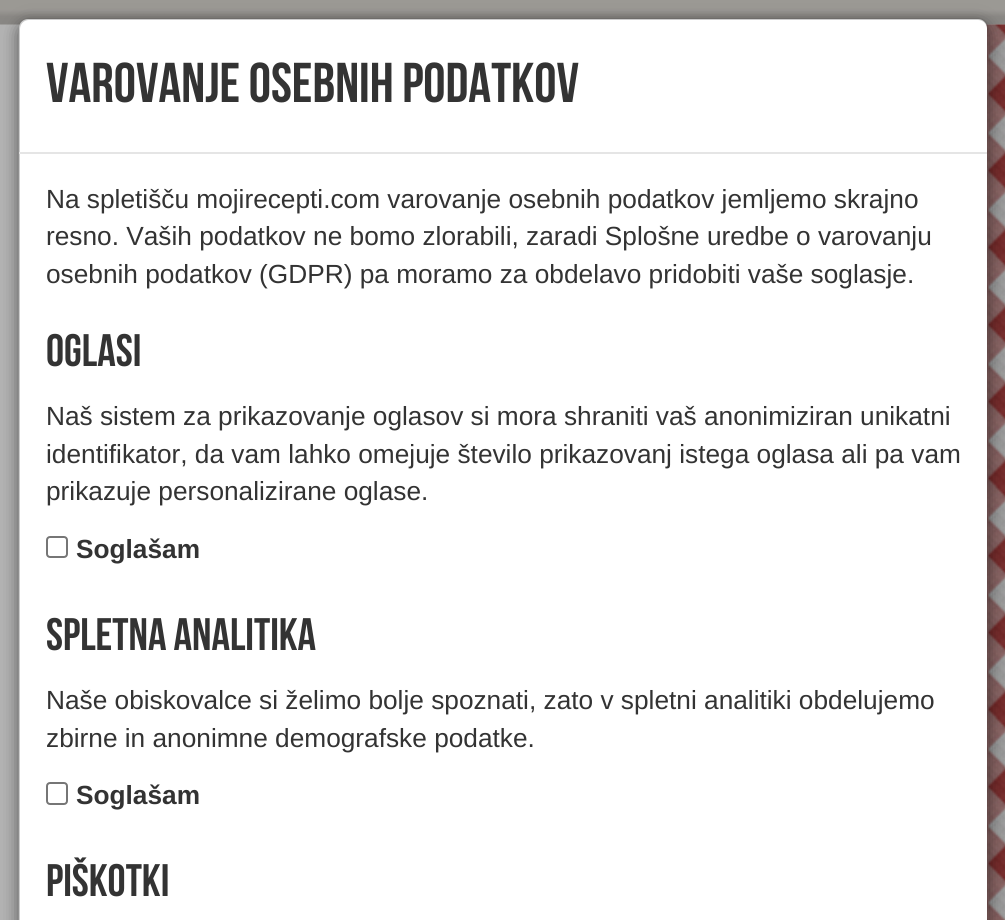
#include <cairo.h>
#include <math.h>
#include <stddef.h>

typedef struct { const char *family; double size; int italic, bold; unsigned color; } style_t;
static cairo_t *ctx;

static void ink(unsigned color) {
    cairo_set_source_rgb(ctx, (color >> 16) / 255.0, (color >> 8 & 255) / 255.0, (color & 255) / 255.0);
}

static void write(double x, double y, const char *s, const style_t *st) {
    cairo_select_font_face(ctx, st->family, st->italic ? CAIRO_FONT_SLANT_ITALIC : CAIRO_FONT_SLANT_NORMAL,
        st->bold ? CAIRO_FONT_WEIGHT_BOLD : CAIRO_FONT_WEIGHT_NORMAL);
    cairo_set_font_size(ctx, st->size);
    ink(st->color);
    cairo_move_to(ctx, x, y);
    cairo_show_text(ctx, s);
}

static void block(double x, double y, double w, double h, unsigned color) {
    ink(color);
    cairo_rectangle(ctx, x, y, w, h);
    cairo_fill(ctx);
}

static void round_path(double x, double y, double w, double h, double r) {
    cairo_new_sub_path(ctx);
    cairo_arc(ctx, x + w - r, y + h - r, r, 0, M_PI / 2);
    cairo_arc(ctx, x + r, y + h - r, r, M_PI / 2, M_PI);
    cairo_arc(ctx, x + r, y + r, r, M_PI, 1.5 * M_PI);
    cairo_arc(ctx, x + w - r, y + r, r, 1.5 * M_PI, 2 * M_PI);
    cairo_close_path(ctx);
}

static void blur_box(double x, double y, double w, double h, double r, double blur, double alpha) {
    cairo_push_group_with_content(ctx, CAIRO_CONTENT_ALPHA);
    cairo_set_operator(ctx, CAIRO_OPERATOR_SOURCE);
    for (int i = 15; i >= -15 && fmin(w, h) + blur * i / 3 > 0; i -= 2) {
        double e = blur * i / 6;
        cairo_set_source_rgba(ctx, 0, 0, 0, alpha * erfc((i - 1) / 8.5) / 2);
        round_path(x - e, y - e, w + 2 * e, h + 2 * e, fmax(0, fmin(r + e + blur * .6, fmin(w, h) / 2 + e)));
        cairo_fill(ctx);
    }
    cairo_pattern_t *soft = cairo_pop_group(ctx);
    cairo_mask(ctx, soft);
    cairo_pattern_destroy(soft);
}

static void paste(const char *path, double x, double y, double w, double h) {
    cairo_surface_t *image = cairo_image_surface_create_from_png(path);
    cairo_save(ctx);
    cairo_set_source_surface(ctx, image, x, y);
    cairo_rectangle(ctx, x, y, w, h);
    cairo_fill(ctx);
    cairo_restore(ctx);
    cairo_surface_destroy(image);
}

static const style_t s1 = {"Bebas Neue", 56, 0, 0, 0x333333};
static const style_t s2 = {"Liberation Sans", 26.25, 0, 0, 0x333333};
static const style_t s3 = {"Bebas Neue", 45.5, 0, 0, 0x333333};
static const style_t s4 = {"Liberation Sans", 26.25, 0, 1, 0x333333};

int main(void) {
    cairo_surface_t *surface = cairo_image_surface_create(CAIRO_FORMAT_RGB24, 1005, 920);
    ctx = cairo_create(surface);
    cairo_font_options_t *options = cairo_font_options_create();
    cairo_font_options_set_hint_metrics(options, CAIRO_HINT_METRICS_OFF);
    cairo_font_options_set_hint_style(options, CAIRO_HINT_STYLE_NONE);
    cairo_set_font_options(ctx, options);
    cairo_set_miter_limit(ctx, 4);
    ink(0xb3b3b3);
    cairo_paint(ctx);
    paste("pic1.png", 0, 0, 1005, 25);
    paste("pic2.png", 986, 24, 19, 896);
    cairo_save(ctx);
    cairo_set_fill_rule(ctx, CAIRO_FILL_RULE_EVEN_ODD);
    cairo_new_path(ctx);
    cairo_move_to(ctx, 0, 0);
    cairo_line_to(ctx, 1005, 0);
    cairo_line_to(ctx, 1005, 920);
    cairo_line_to(ctx, 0, 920);
    cairo_close_path(ctx);
    cairo_move_to(ctx, 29, 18);
    cairo_line_to(ctx, 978, 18);
    cairo_curve_to(ctx, 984, 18, 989, 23, 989, 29);
    cairo_line_to(ctx, 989, 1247);
    cairo_curve_to(ctx, 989, 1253, 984, 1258, 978, 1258);
    cairo_line_to(ctx, 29, 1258);
    cairo_curve_to(ctx, 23, 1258, 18, 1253, 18, 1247);
    cairo_line_to(ctx, 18, 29);
    cairo_curve_to(ctx, 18, 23, 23, 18, 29, 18);
    cairo_close_path(ctx);
    cairo_clip(ctx);
    ink(0x000000);
    blur_box(18, 23, 971, 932, 11, 8, 0.5);
    cairo_restore(ctx);
    ink(0xffffff);
    cairo_new_path(ctx);
    cairo_move_to(ctx, 28, 19);
    cairo_line_to(ctx, 978, 19);
    cairo_curve_to(ctx, 983, 19, 987, 23, 987, 28);
    cairo_line_to(ctx, 987, 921);
    cairo_line_to(ctx, 19, 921);
    cairo_line_to(ctx, 19, 28);
    cairo_curve_to(ctx, 19, 23, 23, 19, 28, 19);
    cairo_close_path(ctx);
    cairo_fill(ctx);
    round_path(19, 19, 969, 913, 10);
    cairo_set_source_rgba(ctx, 0, 0, 0, 0.2);
    cairo_stroke(ctx);
    block(19, 152, 968, 2, 0xe5e5e5);
    write(46, 102, "Varovanje osebnih podatkov", &s1);
    write(46, 208, "Na spletišču mojirecepti.com varovanje osebnih podatkov jemljemo skrajno", &s2);
    write(46, 245, "resno. Vaših podatkov ne bomo zlorabili, zaradi Splošne uredbe o varovanju", &s2);
    write(46, 283, "osebnih podatkov (GDPR) pa moramo za obdelavo pridobiti vaše soglasje.", &s2);
    write(46, 366, "Oglasi", &s3);
    write(46, 425, "Naš sistem za prikazovanje oglasov si mora shraniti vaš anonimiziran unikatni", &s2);
    write(46, 463, "identifikator, da vam lahko omejuje število prikazovanj istega oglasa ali pa vam", &s2);
    write(46, 500, "prikazuje personalizirane oglase.", &s2);
    round_path(47, 537, 20, 20, 3);
    ink(0x767676);
    cairo_stroke(ctx);
    write(76, 558, "Soglašam", &s4);
    write(46, 650, "Spletna analitika", &s3);
    write(46, 709, "Naše obiskovalce si želimo bolje spoznati, zato v spletni analitiki obdelujemo", &s2);
    write(46, 747, "zbirne in anonimne demografske podatke.", &s2);
    round_path(47, 783, 20, 21, 3);
    ink(0x767676);
    cairo_stroke(ctx);
    write(76, 804, "Soglašam", &s4);
    write(46, 896, "Piškotki", &s3);
    cairo_surface_write_to_png(surface, "screenshot.png");
    cairo_font_options_destroy(options);
    cairo_destroy(ctx);
    cairo_surface_destroy(surface);
    return 0;
}
